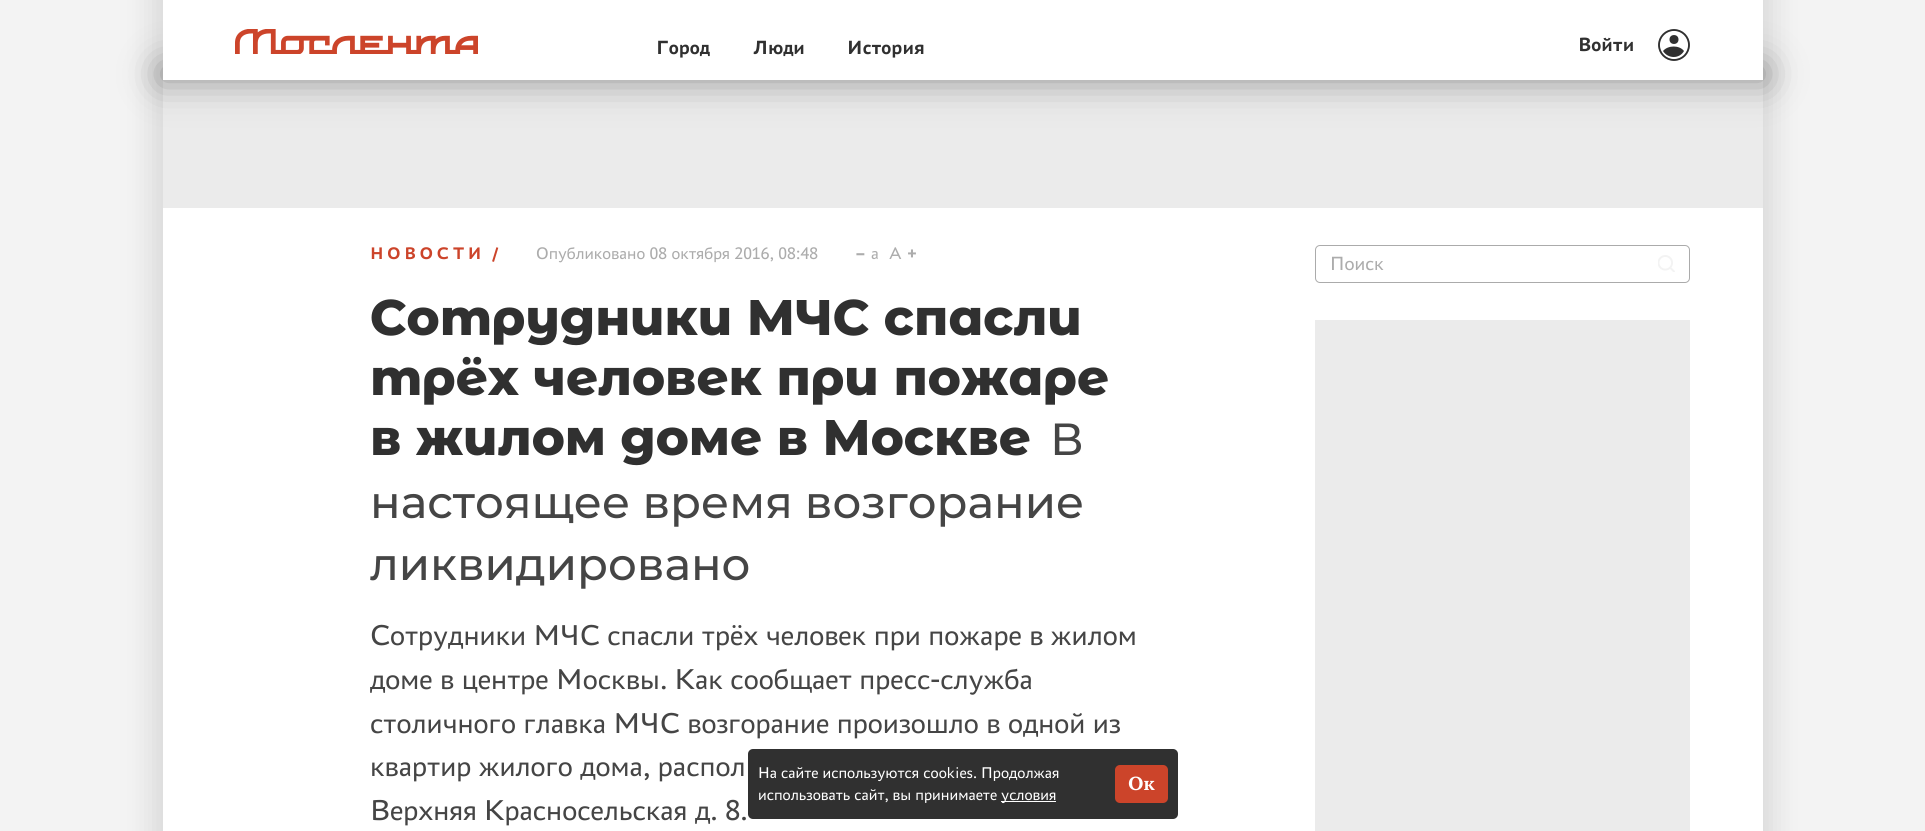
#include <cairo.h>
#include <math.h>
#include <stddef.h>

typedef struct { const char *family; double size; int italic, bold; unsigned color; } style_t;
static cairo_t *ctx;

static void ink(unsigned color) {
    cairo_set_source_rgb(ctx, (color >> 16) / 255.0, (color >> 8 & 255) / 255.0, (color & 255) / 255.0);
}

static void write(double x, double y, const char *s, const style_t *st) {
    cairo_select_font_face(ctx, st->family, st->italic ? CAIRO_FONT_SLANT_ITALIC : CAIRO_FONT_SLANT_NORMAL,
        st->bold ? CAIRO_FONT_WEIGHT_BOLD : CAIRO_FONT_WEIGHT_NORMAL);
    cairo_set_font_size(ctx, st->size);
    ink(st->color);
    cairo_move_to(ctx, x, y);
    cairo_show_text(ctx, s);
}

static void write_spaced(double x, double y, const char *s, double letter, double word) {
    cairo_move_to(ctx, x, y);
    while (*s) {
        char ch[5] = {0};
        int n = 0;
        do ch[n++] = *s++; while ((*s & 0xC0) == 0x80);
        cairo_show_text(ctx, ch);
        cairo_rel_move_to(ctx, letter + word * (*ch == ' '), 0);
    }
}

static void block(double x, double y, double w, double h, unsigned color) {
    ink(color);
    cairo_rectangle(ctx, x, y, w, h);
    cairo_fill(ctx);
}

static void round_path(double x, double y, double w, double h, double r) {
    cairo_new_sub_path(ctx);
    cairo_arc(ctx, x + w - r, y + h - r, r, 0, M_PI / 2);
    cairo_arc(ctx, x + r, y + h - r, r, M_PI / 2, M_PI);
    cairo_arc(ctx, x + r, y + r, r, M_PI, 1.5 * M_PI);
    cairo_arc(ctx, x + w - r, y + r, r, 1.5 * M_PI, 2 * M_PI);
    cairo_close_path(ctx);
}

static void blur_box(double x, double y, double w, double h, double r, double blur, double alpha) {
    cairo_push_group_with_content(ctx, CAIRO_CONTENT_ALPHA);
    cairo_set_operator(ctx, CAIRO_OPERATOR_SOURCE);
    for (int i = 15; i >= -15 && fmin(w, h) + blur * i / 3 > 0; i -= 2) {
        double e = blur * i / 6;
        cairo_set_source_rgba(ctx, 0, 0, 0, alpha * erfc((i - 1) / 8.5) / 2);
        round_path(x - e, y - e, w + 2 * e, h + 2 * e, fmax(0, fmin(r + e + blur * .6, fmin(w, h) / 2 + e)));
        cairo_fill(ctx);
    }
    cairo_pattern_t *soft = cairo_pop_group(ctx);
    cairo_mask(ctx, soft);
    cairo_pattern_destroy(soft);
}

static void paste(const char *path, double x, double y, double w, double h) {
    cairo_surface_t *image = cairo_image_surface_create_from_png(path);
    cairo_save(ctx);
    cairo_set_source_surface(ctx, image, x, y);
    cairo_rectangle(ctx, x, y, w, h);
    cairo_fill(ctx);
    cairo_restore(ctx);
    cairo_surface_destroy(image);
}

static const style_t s1 = {"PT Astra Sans", 20, 0, 1, 0x303030};
static const style_t s2 = {"PT Astra Sans", 17.5, 0, 0, 0xacacac};
static const style_t s3 = {"PT Astra Sans", 17.5, 0, 1, 0xacacac};
static const style_t s4 = {"Montserrat Alternates ExtraBold", 50, 0, 0, 0x303030};
static const style_t s5 = {"Montserrat Medium", 45, 0, 0, 0x454545};
static const style_t s6 = {"PT Astra Sans", 30, 0, 0, 0x454545};
static const style_t s7 = {"PT Astra Sans", 20, 0, 0, 0xacacac};
static const style_t s8 = {"PT Astra Sans", 16.25, 0, 0, 0xffffff};
static const style_t s9 = {"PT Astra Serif", 20, 0, 1, 0xffffff};

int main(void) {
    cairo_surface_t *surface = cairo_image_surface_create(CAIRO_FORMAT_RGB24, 1925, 831);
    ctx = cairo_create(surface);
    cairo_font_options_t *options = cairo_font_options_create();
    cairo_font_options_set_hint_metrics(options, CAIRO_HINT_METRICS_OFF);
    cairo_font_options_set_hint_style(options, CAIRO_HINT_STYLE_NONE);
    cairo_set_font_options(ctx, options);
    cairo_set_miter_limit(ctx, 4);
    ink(0xf3f3f3);
    cairo_paint(ctx);
    ink(0x000000);
    blur_box(150, -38, 1625, 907, 0, 12.5, 0.1);
    block(163, 208, 1600, 623, 0xffffff);
    block(163, 80, 1600, 128, 0xebebeb);
    ink(0x000000);
    blur_box(163, 68, 1600, 12, 0, 19, 0.4);
    block(163, 0, 1600, 80, 0xffffff);
    paste("pic1.png", 235, 29, 243, 25);
    write(656, 54, "Город", &s1);
    write(753, 54, "Люди", &s1);
    write(847, 54, "История", &s1);
    write(1578, 51, "Войти", &s1);
    cairo_new_path(ctx);
    cairo_arc(ctx, 1674, 45, 15, 0, 2 * M_PI);
    cairo_set_line_width(ctx, 1.9);
    cairo_stroke(ctx);
    cairo_set_fill_rule(ctx, CAIRO_FILL_RULE_EVEN_ODD);
    cairo_new_path(ctx);
    cairo_move_to(ctx, 1684, 51);
    cairo_curve_to(ctx, 1679.5, 59, 1668, 59, 1663, 51);
    cairo_curve_to(ctx, 1668, 45, 1679.5, 45, 1684, 51);
    cairo_fill(ctx);
    cairo_arc(ctx, 1674, 39.5, 4.5, 0, 2 * M_PI);
    cairo_fill(ctx);
    cairo_set_font_size(ctx, 17.5);
    ink(0xcc442a);
    write_spaced(370, 259, "НОВОСТИ /", 3.5, 0);
    write(536, 259, "Опубликовано 08 октября 2016, 08:48", &s2);
    write(856, 259, "–", &s3);
    write(871, 259, "a", &s2);
    write(889, 259, "A", &s2);
    write(907, 259, "+", &s3);
    write(370, 335, "Сотрудники МЧС спасли", &s4);
    write(370, 395, "трёх человек при пожаре", &s4);
    write(370, 455, "в жилом доме в Москве", &s4);
    write(1050, 455, "В", &s5);
    write(370, 518, "настоящее время возгорание", &s5);
    write(370, 580, "ликвидировано", &s5);
    write(370, 645, "Сотрудники МЧС спасли трёх человек при пожаре в жилом", &s6);
    write(370, 689, "доме в центре Москвы. Как сообщает пресс-служба", &s6);
    write(370, 733, "столичного главка МЧС возгорание произошло в одной из", &s6);
    write(370, 776, "квартир жилого дома, распол", &s6);
    write(370, 820, "Верхняя Красносельская д. 8.", &s6);
    round_path(1315.5, 245.5, 374, 37, 4.5);
    ink(0xababab);
    cairo_set_line_width(ctx, 1);
    cairo_stroke(ctx);
    write(1330, 270, "Поиск", &s7);
    paste("pic2.png", 1658, 255, 17, 17);
    block(1315, 320, 375, 511, 0xebebeb);
    ink(0x303030);
    round_path(748, 749, 430, 70, 5);
    cairo_fill(ctx);
    write(758, 778, "На сайте используются cookies. Продолжая", &s8);
    write(758, 800, "использовать сайт, вы принимаете", &s8);
    block(1001, 801, 55, 1, 0xffffff);
    write(1001, 800, "условия", &s8);
    ink(0xcc442a);
    round_path(1115, 765, 53, 38, 5);
    cairo_fill(ctx);
    write(1128, 790, "Ок", &s9);
    cairo_surface_write_to_png(surface, "screenshot.png");
    cairo_font_options_destroy(options);
    cairo_destroy(ctx);
    cairo_surface_destroy(surface);
    return 0;
}
